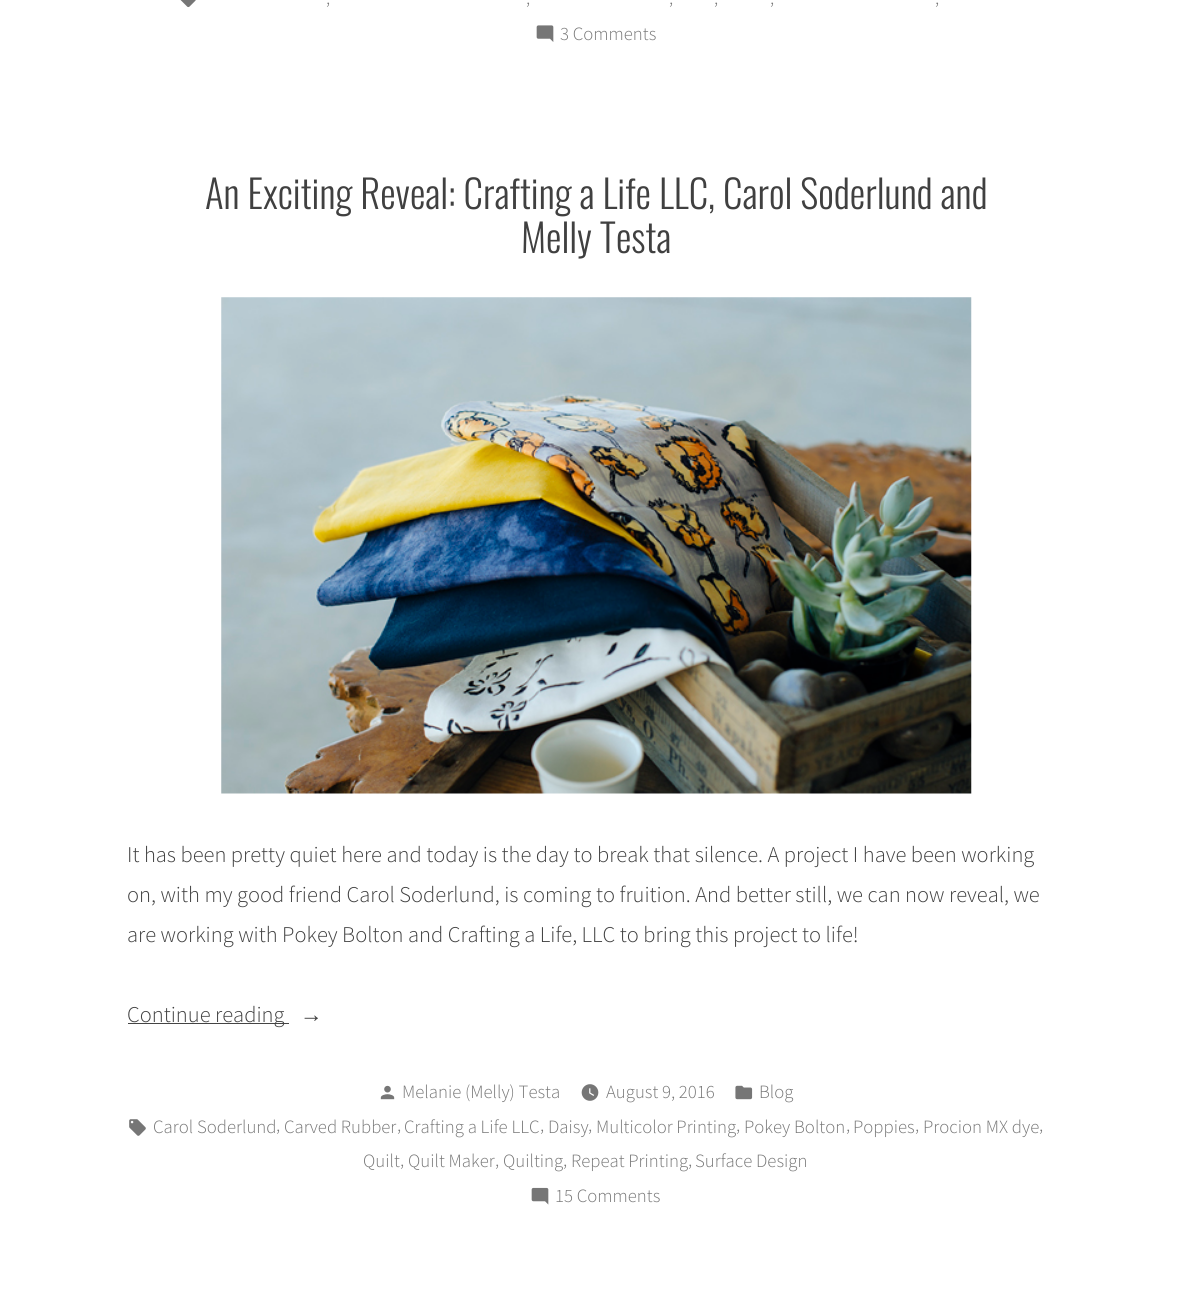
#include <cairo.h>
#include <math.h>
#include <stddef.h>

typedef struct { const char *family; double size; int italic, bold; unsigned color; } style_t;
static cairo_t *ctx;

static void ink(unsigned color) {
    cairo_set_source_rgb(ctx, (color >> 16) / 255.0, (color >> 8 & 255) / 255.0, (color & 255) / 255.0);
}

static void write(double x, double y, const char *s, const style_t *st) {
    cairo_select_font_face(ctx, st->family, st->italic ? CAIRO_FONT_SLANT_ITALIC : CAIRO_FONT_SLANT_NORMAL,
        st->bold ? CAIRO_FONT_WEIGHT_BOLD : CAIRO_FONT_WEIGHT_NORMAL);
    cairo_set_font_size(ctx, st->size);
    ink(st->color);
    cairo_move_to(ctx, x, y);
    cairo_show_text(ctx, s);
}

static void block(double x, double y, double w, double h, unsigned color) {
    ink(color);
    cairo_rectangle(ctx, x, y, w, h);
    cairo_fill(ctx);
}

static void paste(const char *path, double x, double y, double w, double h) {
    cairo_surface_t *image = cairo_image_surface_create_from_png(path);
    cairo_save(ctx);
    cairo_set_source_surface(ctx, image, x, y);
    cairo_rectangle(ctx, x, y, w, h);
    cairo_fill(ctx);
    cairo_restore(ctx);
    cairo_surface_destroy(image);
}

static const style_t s1 = {"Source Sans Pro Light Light", 18.75, 0, 0, 0x767676};
static const style_t s2 = {"Oswald Light", 38.9, 0, 0, 0x404040};
static const style_t s3 = {"Source Sans Pro Light Light", 22.5, 0, 0, 0x404040};
static const style_t s4 = {"Liberation Sans", 22.5, 0, 0, 0x404040};

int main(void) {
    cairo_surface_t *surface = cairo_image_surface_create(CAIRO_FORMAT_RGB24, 1191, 1312);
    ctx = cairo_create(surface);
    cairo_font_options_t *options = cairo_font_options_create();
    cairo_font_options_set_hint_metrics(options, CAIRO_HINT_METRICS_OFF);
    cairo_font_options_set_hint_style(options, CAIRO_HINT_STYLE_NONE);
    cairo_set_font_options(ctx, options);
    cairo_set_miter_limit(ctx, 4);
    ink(0xffffff);
    cairo_paint(ctx);
    paste("pic1.png", 180, 0, 16, 8);
    write(326, 4, ",", &s1);
    write(526, 4, ",", &s1);
    write(669, 4, ",", &s1);
    write(714, 4, ",", &s1);
    write(770, 4, ",", &s1);
    write(935, 4, ",", &s1);
    paste("pic2.png", 536, 25, 18, 17);
    write(560, 40, "3 Comments", &s1);
    write(205, 209, "An Exciting Reveal: Crafting a Life LLC, Carol Soderlund and", &s2);
    write(521, 253, "Melly Testa", &s2);
    paste("pic3.png", 221, 297, 751, 497);
    write(127, 862, "It has been pretty quiet here and today is the day to break that silence. A project I have been working", &s3);
    write(127, 902, "on, with my good friend Carol Soderlund, is coming to fruition. And better still, we can now reveal, we", &s3);
    write(127, 942, "are working with Pokey Bolton and Crafting a Life, LLC to bring this project to life!", &s3);
    block(128, 1023, 161, 1, 0x444444);
    write(127, 1022, "Continue reading", &s3);
    write(300, 1022, "→", &s4);
    paste("pic4.png", 380, 1085, 15, 15);
    write(402, 1098, "Melanie (Melly) Testa", &s1);
    paste("pic5.png", 581, 1084, 18, 17);
    write(606, 1098, "August 9, 2016", &s1);
    paste("pic6.png", 735, 1085, 18, 15);
    write(759, 1098, "Blog", &s1);
    paste("pic7.png", 129, 1119, 17, 17);
    write(153, 1133, "Carol Soderlund", &s1);
    write(276, 1131, ",", &s1);
    write(284, 1133, "Carved Rubber", &s1);
    write(397, 1131, ",", &s1);
    write(404, 1133, "Crafting a Life LLC", &s1);
    write(540, 1131, ",", &s1);
    write(548, 1133, "Daisy", &s1);
    write(588, 1131, ",", &s1);
    write(596, 1133, "Multicolor Printing", &s1);
    write(736, 1131, ",", &s1);
    write(744, 1133, "Pokey Bolton", &s1);
    write(846, 1131, ",", &s1);
    write(853, 1133, "Poppies", &s1);
    write(915, 1131, ",", &s1);
    write(923, 1133, "Procion MX dye", &s1);
    write(1039, 1131, ",", &s1);
    write(363, 1167, "Quilt", &s1);
    write(400, 1166, ",", &s1);
    write(408, 1167, "Quilt Maker", &s1);
    write(495, 1166, ",", &s1);
    write(503, 1167, "Quilting", &s1);
    write(563, 1166, ",", &s1);
    write(571, 1167, "Repeat Printing", &s1);
    write(688, 1166, ",", &s1);
    write(695, 1167, "Surface Design", &s1);
    paste("pic8.png", 531, 1187, 18, 18);
    write(555, 1202, "15 Comments", &s1);
    cairo_surface_write_to_png(surface, "screenshot.png");
    cairo_font_options_destroy(options);
    cairo_destroy(ctx);
    cairo_surface_destroy(surface);
    return 0;
}
